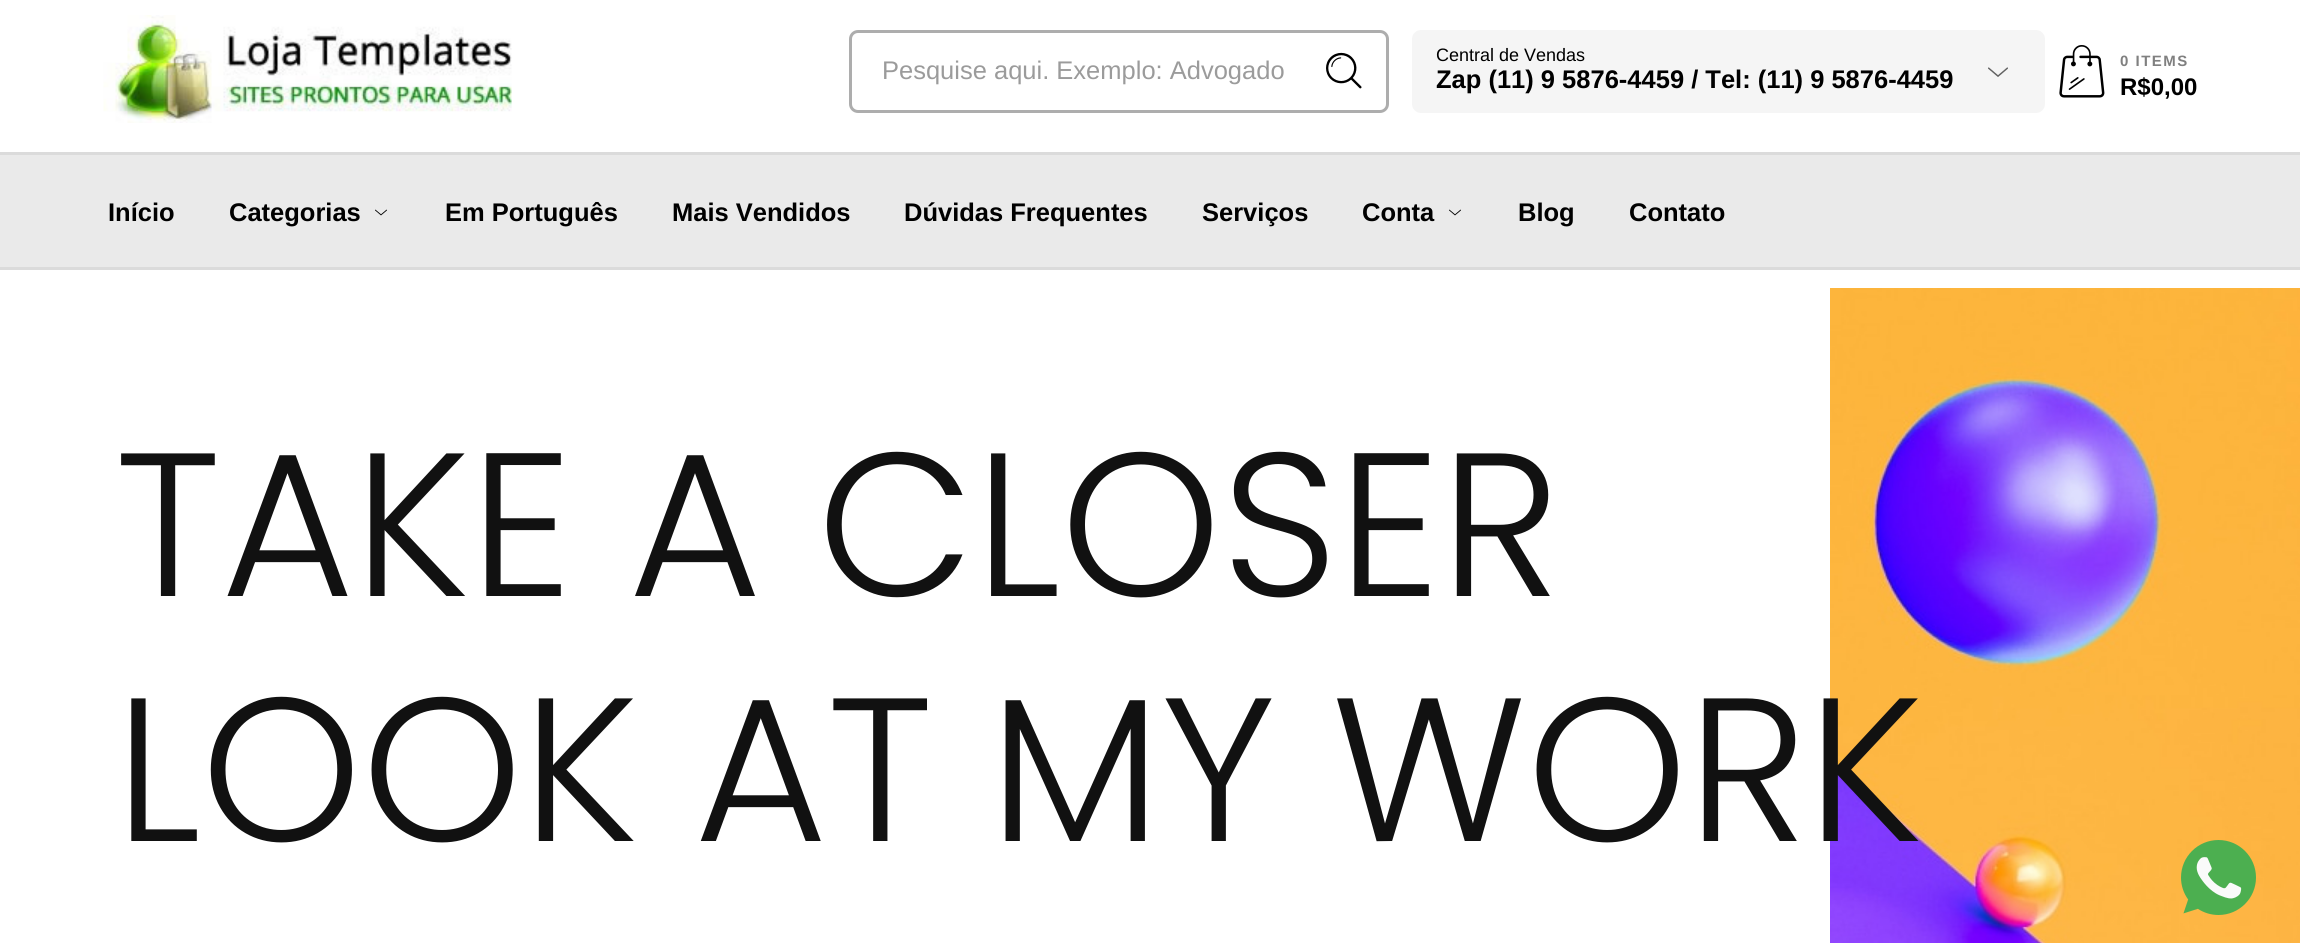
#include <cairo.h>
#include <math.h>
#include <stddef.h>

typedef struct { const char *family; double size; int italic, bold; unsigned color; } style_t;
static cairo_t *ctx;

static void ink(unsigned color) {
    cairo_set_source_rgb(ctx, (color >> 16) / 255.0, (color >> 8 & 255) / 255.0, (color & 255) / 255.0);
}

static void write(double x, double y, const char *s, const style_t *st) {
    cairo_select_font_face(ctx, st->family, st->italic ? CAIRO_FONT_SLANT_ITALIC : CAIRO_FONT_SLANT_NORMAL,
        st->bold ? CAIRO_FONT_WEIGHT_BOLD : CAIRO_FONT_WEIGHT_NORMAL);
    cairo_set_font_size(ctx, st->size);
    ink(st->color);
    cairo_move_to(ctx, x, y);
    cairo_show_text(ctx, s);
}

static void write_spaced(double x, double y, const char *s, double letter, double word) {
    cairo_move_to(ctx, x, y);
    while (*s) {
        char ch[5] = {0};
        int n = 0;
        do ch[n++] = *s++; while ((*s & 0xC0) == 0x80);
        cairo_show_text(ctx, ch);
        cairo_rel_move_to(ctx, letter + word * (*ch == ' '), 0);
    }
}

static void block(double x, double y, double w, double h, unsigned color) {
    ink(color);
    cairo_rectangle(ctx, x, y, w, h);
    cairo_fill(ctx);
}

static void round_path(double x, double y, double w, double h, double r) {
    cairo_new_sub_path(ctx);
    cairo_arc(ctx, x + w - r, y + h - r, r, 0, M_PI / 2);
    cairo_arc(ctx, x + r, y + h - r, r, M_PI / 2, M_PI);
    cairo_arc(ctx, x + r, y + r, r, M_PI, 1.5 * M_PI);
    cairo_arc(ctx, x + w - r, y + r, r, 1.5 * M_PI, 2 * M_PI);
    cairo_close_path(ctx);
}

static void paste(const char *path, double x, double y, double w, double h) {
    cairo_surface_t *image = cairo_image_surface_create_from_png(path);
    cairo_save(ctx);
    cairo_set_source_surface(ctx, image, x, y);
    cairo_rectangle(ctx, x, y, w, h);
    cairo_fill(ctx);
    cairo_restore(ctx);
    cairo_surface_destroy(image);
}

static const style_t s1 = {"Liberation Sans", 25.5, 0, 0, 0x9b9b9b};
static const style_t s2 = {"Liberation Sans", 18, 0, 0, 0x000000};
static const style_t s3 = {"Liberation Sans", 25.5, 0, 1, 0x000000};
static const style_t s4 = {"Liberation Sans", 24, 0, 1, 0x000000};
static const style_t s5 = {"Poppins Light", 204, 0, 0, 0x111111};

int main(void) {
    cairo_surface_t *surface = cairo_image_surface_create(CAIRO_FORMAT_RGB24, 2300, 943);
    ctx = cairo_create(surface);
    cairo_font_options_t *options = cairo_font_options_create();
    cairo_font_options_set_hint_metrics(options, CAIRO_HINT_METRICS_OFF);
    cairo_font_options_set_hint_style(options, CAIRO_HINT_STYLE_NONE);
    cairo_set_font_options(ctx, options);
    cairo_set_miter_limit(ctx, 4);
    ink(0xffffff);
    cairo_paint(ctx);
    paste("pic1.png", 103, 15, 409, 108);
    round_path(850.5, 31.5, 537, 80, 7.5);
    ink(0xadadad);
    cairo_set_line_width(ctx, 3);
    cairo_stroke(ctx);
    write(882, 79, "Pesquise aqui. Exemplo: Advogado", &s1);
    paste("pic2.png", 1326, 52, 36, 37);
    ink(0xf5f5f5);
    round_path(1413, 31, 631, 81, 8);
    cairo_fill_preserve(ctx);
    cairo_set_line_width(ctx, 2);
    cairo_stroke(ctx);
    write(1436, 61, "Central de Vendas", &s2);
    write(1436, 88, "Zap (11) 9 5876-4459 / Tel: (11) 9 5876-4459", &s3);
    paste("pic3.png", 1988, 67, 20, 10);
    paste("pic4.png", 2059, 45, 46, 53);
    cairo_set_font_size(ctx, 15);
    ink(0x808080);
    write_spaced(2120, 66, "0 ITEMS", 1.5, 0);
    write(2120, 95, "R$0,00", &s4);
    block(0, 155, 2300, 112, 0xeaeaea);
    block(0, 152, 2300, 3, 0xdbdbdb);
    block(0, 267, 2300, 3, 0xdbdbdb);
    write(108, 221, "Início", &s3);
    write(229, 221, "Categorias", &s3);
    paste("pic5.png", 375, 209, 12, 7);
    write(445, 221, "Em Português", &s3);
    write(672, 221, "Mais Vendidos", &s3);
    write(904, 221, "Dúvidas Frequentes", &s3);
    write(1202, 221, "Serviços", &s3);
    write(1362, 221, "Conta", &s3);
    paste("pic5.png", 1449, 209, 12, 7);
    write(1518, 221, "Blog", &s3);
    write(1629, 221, "Contato", &s3);
    paste("pic6.png", 1830, 288, 470, 655);
    write(115, 596, "TAKE A CLOSER", &s5);
    write(115, 841, "LOOK AT MY WORK", &s5);
    paste("pic7.png", 2181, 840, 75, 75);
    cairo_surface_write_to_png(surface, "screenshot.png");
    cairo_font_options_destroy(options);
    cairo_destroy(ctx);
    cairo_surface_destroy(surface);
    return 0;
}
